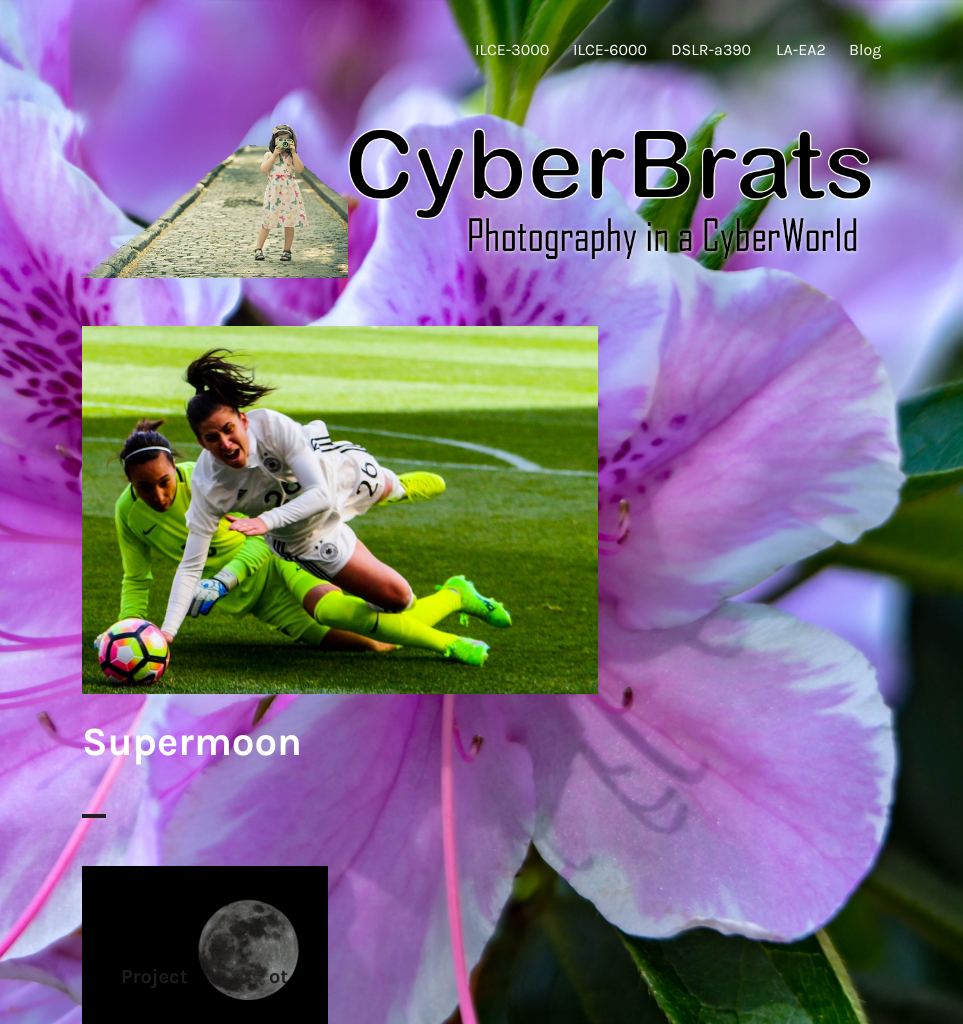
#include <cairo.h>
#include <math.h>
#include <stddef.h>

typedef struct { const char *family; double size; int italic, bold; unsigned color; } style_t;
static cairo_t *ctx;

static void ink(unsigned color) {
    cairo_set_source_rgb(ctx, (color >> 16) / 255.0, (color >> 8 & 255) / 255.0, (color & 255) / 255.0);
}

static void write(double x, double y, const char *s, const style_t *st) {
    cairo_select_font_face(ctx, st->family, st->italic ? CAIRO_FONT_SLANT_ITALIC : CAIRO_FONT_SLANT_NORMAL,
        st->bold ? CAIRO_FONT_WEIGHT_BOLD : CAIRO_FONT_WEIGHT_NORMAL);
    cairo_set_font_size(ctx, st->size);
    ink(st->color);
    cairo_move_to(ctx, x, y);
    cairo_show_text(ctx, s);
}

static void block(double x, double y, double w, double h, unsigned color) {
    ink(color);
    cairo_rectangle(ctx, x, y, w, h);
    cairo_fill(ctx);
}

static void paste(const char *path, double x, double y, double w, double h) {
    cairo_surface_t *image = cairo_image_surface_create_from_png(path);
    cairo_save(ctx);
    cairo_set_source_surface(ctx, image, x, y);
    cairo_rectangle(ctx, x, y, w, h);
    cairo_fill(ctx);
    cairo_restore(ctx);
    cairo_surface_destroy(image);
}

static const style_t s1 = {"Karla", 16, 0, 0, 0xffffff};
static const style_t s2 = {"Karla", 40, 0, 1, 0xffffff};
static const style_t s3 = {"Karla", 20, 0, 1, 0x1c1c1c};

int main(void) {
    cairo_surface_t *surface = cairo_image_surface_create(CAIRO_FORMAT_RGB24, 963, 1024);
    ctx = cairo_create(surface);
    cairo_font_options_t *options = cairo_font_options_create();
    cairo_font_options_set_hint_metrics(options, CAIRO_HINT_METRICS_OFF);
    cairo_font_options_set_hint_style(options, CAIRO_HINT_STYLE_NONE);
    cairo_set_font_options(ctx, options);
    cairo_set_miter_limit(ctx, 4);
    ink(0xffffff);
    cairo_paint(ctx);
    paste("pic1.png", 0, 0, 963, 1024);
    write(475, 55, "ILCE-3000", &s1);
    write(573, 55, "ILCE-6000", &s1);
    write(671, 55, "DSLR-a390", &s1);
    write(776, 55, "LA-EA2", &s1);
    write(849, 55, "Blog", &s1);
    paste("pic2.png", 82, 124, 790, 154);
    paste("pic3.png", 82, 326, 516, 368);
    write(82, 755, "Supermoon", &s2);
    block(82, 814, 24, 4, 0x202020);
    paste("pic4.png", 82, 866, 246, 158);
    write(121, 983, "Project", &s3);
    write(269, 983, "ot", &s3);
    cairo_surface_write_to_png(surface, "screenshot.png");
    cairo_font_options_destroy(options);
    cairo_destroy(ctx);
    cairo_surface_destroy(surface);
    return 0;
}
